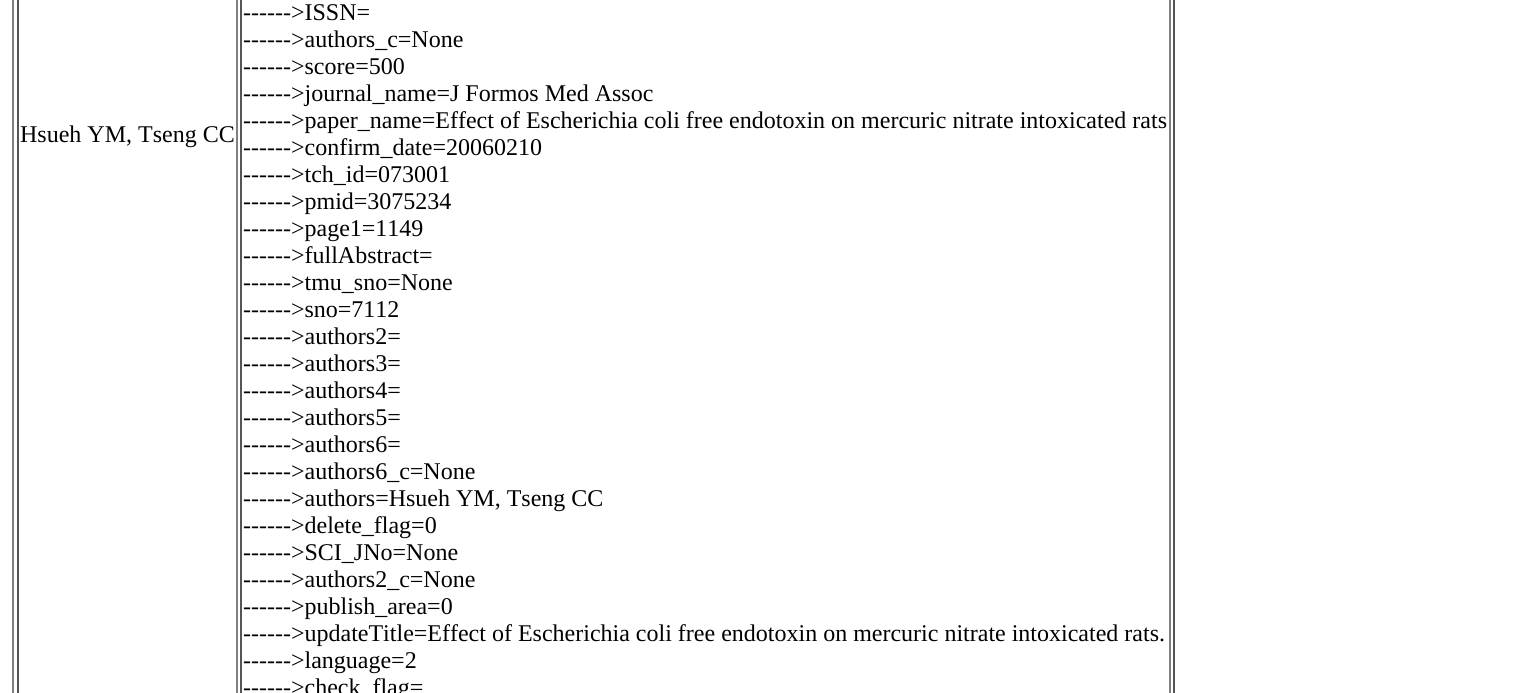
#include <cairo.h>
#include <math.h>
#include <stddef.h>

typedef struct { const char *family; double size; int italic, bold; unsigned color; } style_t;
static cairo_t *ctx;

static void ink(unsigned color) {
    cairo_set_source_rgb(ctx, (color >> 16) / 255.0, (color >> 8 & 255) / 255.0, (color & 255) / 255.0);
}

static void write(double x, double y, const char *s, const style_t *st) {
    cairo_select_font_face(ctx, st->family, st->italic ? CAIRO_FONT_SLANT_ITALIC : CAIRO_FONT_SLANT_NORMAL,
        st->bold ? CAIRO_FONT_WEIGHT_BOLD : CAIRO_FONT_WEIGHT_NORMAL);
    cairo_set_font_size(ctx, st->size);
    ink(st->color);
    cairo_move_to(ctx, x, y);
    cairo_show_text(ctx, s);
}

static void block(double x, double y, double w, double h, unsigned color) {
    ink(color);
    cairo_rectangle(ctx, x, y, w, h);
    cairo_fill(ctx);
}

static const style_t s1 = {"Liberation Serif", 24, 0, 0, 0x000000};

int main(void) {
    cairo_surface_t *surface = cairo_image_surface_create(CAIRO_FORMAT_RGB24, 1524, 693);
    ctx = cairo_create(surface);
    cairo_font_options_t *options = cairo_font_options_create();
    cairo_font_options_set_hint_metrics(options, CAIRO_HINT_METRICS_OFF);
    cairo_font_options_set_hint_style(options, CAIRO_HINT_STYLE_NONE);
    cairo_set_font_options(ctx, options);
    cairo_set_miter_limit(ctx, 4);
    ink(0xffffff);
    cairo_paint(ctx);
    block(1173, 0, 2, 693, 0x555555);
    block(12, 0, 2, 693, 0x808080);
    block(236, 0, 2, 693, 0x808080);
    block(17, 0, 2, 693, 0x555555);
    write(20, 142, "Hsueh YM, Tseng CC", &s1);
    block(1169, 0, 2, 693, 0x808080);
    block(240, 0, 2, 693, 0x555555);
    write(243, 20, "------>ISSN=", &s1);
    write(243, 47, "------>authors_c=None", &s1);
    write(243, 74, "------>score=500", &s1);
    write(243, 101, "------>journal_name=J Formos Med Assoc", &s1);
    write(243, 128, "------>paper_name=Effect of Escherichia coli free endotoxin on mercuric nitrate intoxicated rats", &s1);
    write(243, 155, "------>confirm_date=20060210", &s1);
    write(243, 182, "------>tch_id=073001", &s1);
    write(243, 209, "------>pmid=3075234", &s1);
    write(243, 236, "------>page1=1149", &s1);
    write(243, 263, "------>fullAbstract=", &s1);
    write(243, 290, "------>tmu_sno=None", &s1);
    write(243, 317, "------>sno=7112", &s1);
    write(243, 344, "------>authors2=", &s1);
    write(243, 371, "------>authors3=", &s1);
    write(243, 398, "------>authors4=", &s1);
    write(243, 425, "------>authors5=", &s1);
    write(243, 452, "------>authors6=", &s1);
    write(243, 479, "------>authors6_c=None", &s1);
    write(243, 506, "------>authors=Hsueh YM, Tseng CC", &s1);
    write(243, 533, "------>delete_flag=0", &s1);
    write(243, 560, "------>SCI_JNo=None", &s1);
    write(243, 587, "------>authors2_c=None", &s1);
    write(243, 614, "------>publish_area=0", &s1);
    write(243, 641, "------>updateTitle=Effect of Escherichia coli free endotoxin on mercuric nitrate intoxicated rats.", &s1);
    write(243, 668, "------>language=2", &s1);
    write(243, 695, "------>check_flag=", &s1);
    cairo_surface_write_to_png(surface, "screenshot.png");
    cairo_font_options_destroy(options);
    cairo_destroy(ctx);
    cairo_surface_destroy(surface);
    return 0;
}
